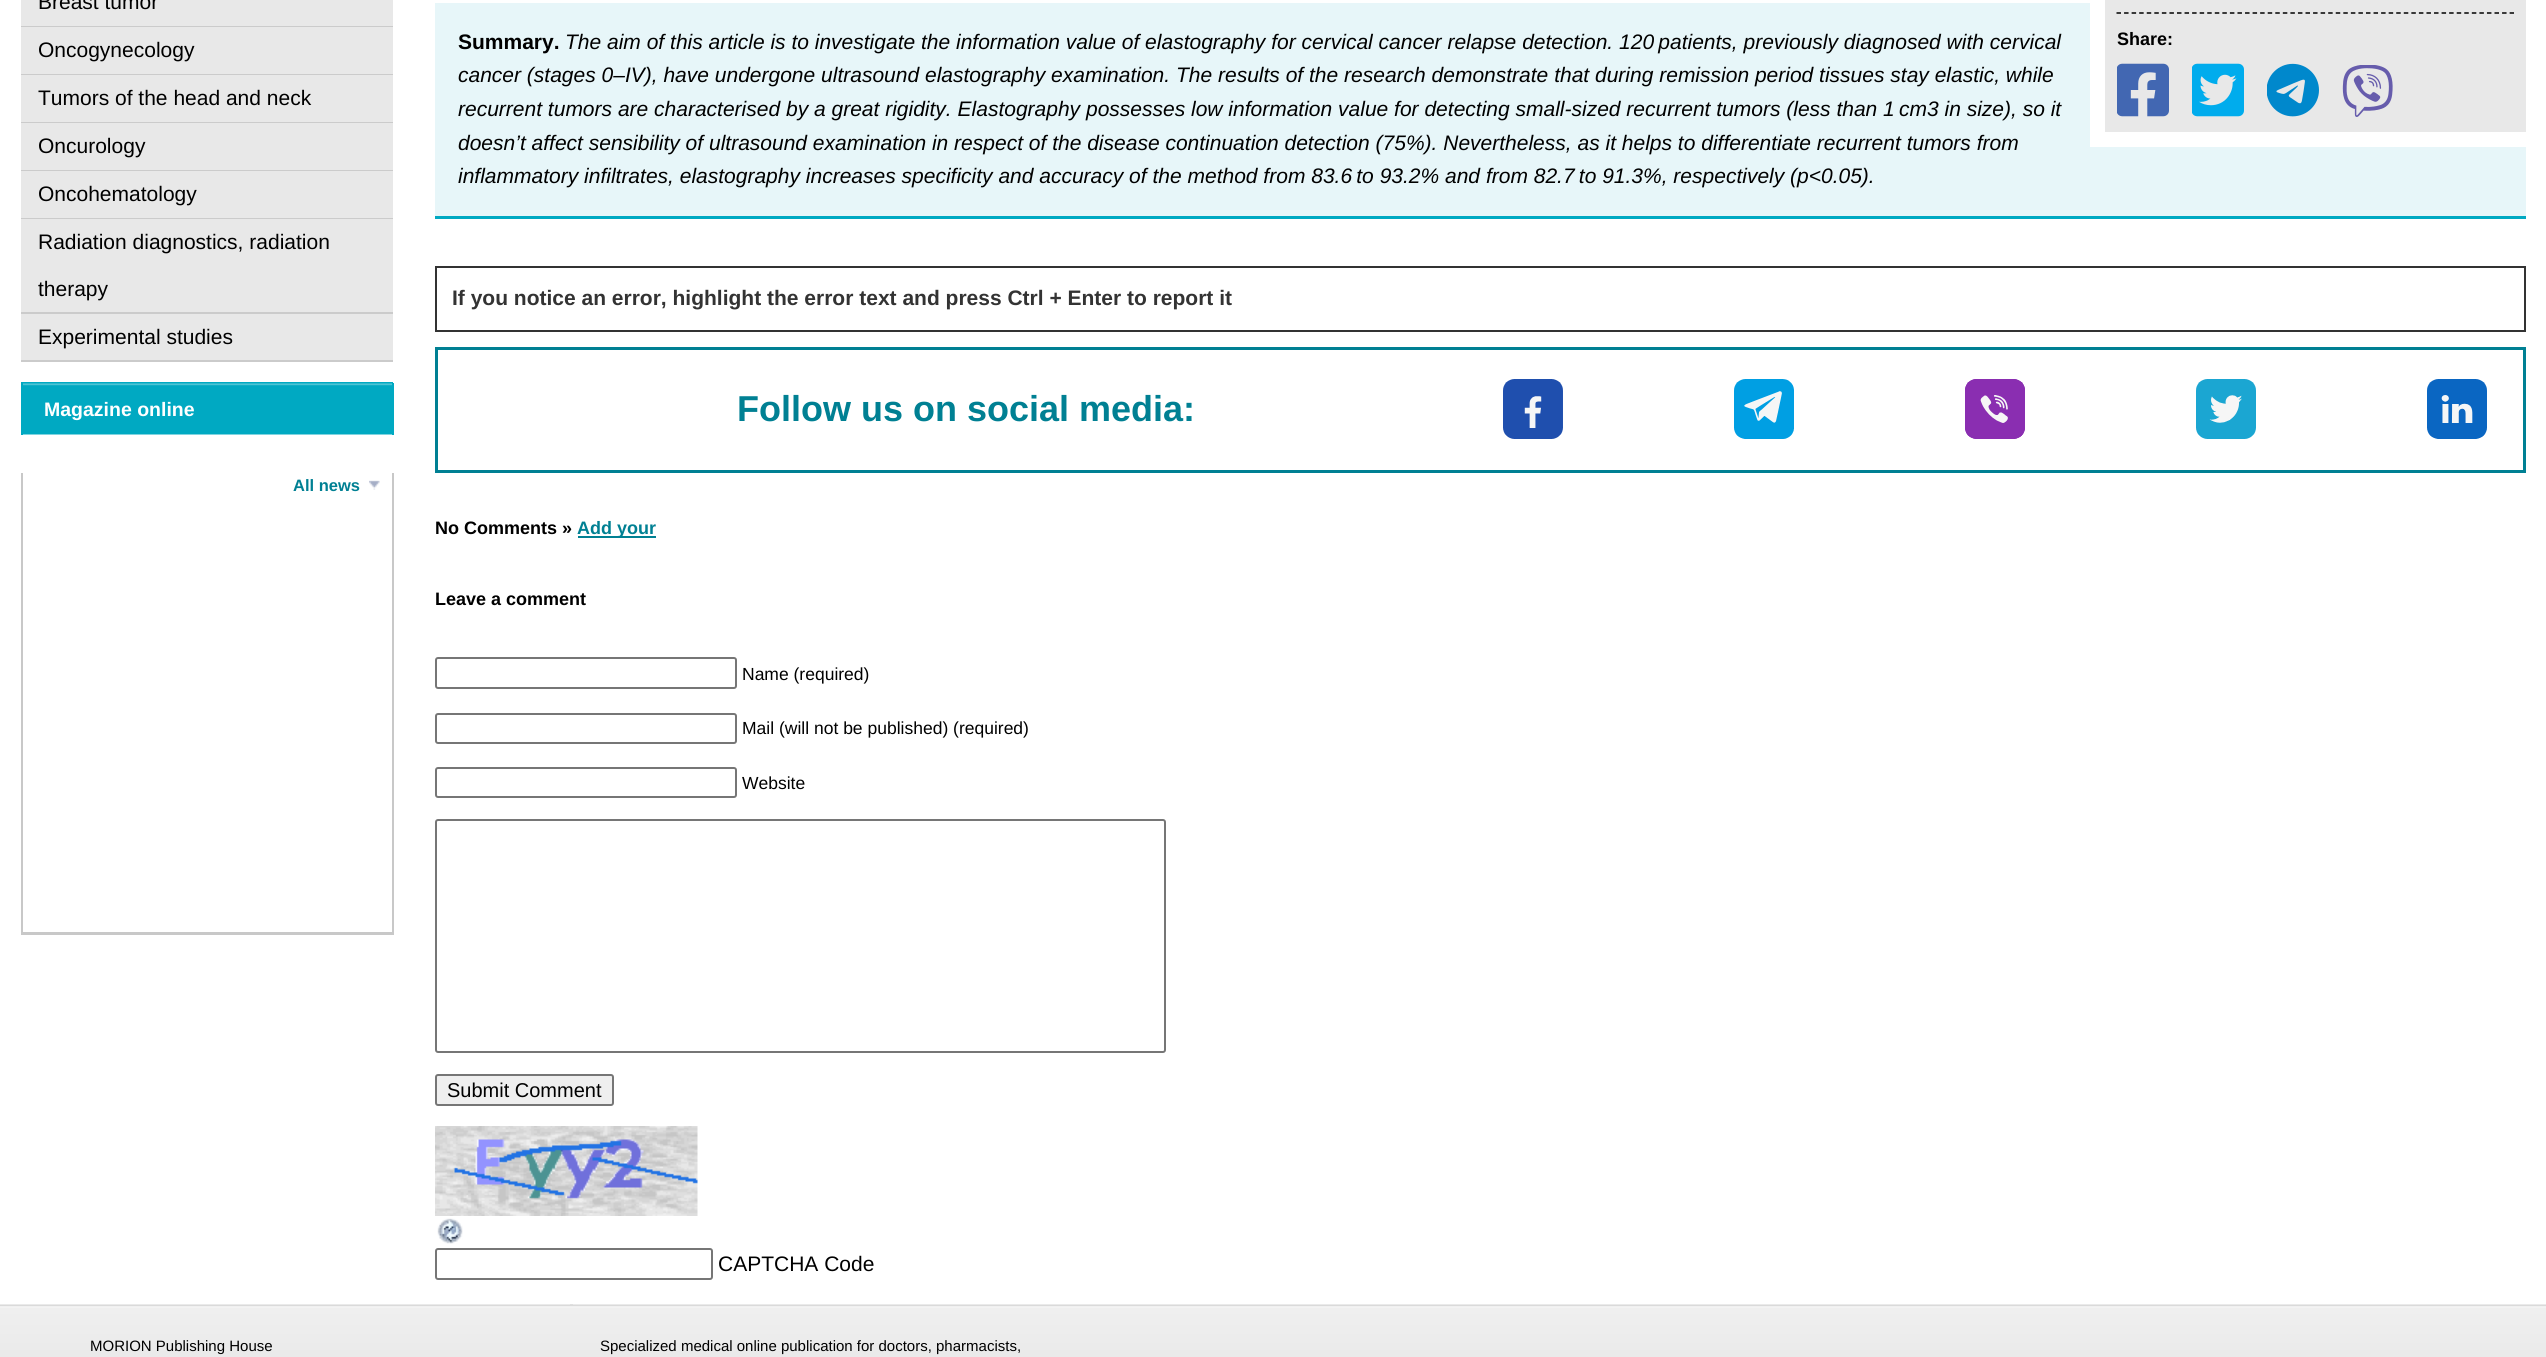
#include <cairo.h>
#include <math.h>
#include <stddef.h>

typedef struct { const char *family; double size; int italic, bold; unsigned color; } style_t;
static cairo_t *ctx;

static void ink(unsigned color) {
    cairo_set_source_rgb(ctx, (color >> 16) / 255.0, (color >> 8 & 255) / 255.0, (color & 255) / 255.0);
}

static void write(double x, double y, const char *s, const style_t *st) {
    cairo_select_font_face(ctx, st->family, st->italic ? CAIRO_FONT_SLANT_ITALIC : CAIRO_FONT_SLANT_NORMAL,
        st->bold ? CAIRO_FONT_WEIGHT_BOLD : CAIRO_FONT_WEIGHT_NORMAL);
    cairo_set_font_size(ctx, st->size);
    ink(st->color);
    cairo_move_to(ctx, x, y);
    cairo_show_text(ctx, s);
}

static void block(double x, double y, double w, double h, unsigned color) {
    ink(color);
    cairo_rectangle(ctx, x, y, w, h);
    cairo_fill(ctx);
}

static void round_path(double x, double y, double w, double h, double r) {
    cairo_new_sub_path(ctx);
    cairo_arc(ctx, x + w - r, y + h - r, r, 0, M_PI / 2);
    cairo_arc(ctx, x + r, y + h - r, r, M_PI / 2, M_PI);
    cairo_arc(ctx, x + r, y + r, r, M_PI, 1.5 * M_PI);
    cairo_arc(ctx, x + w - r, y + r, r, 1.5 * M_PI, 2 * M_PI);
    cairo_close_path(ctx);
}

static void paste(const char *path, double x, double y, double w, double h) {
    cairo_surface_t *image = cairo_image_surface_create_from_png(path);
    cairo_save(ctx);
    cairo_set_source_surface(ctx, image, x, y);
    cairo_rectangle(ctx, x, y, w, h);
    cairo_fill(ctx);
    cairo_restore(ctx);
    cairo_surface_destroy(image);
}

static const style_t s1 = {"Liberation Sans", 21, 0, 0, 0x000000};
static const style_t s2 = {"Liberation Sans", 19.5, 0, 1, 0xffffff};
static const style_t s3 = {"Liberation Sans", 16.5, 0, 1, 0x008093};
static const style_t s4 = {"Liberation Sans", 21, 0, 1, 0x000000};
static const style_t s5 = {"Liberation Sans", 21, 1, 0, 0x000000};
static const style_t s6 = {"Liberation Sans", 21, 0, 1, 0x333333};
static const style_t s7 = {"Liberation Sans", 36, 0, 1, 0x008093};
static const style_t s8 = {"Liberation Sans", 18, 0, 1, 0x000000};
static const style_t s9 = {"Liberation Sans", 18, 0, 1, 0x008093};
static const style_t s10 = {"Liberation Sans", 17.5, 0, 0, 0x000000};
static const style_t s11 = {"Liberation Sans", 20, 0, 0, 0x000000};
static const style_t s12 = {"Liberation Sans", 15, 0, 0, 0x000000};

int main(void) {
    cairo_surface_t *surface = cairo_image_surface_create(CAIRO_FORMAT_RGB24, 2546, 1357);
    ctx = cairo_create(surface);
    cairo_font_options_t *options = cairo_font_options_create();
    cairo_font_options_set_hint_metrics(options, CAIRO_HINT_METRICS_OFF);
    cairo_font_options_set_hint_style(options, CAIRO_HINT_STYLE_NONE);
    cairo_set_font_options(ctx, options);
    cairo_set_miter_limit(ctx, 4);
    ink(0xffffff);
    cairo_paint(ctx);
    block(21, 0, 372, 26, 0xe8e8e8);
    block(21, 26, 372, 1, 0xcbcbcb);
    write(38, 9, "Breast tumor", &s1);
    block(21, 27, 372, 47, 0xe8e8e8);
    block(21, 74, 372, 1, 0xcbcbcb);
    write(38, 57, "Oncogynecology", &s1);
    block(21, 75, 372, 47, 0xe8e8e8);
    block(21, 122, 372, 1, 0xcbcbcb);
    write(38, 105, "Tumors of the head and neck", &s1);
    block(21, 123, 372, 47, 0xe8e8e8);
    block(21, 170, 372, 1, 0xcbcbcb);
    write(38, 153, "Oncurology", &s1);
    block(21, 171, 372, 47, 0xe8e8e8);
    block(21, 218, 372, 1, 0xcbcbcb);
    write(38, 201, "Oncohematology", &s1);
    block(21, 219, 372, 93, 0xe8e8e8);
    block(21, 312, 372, 2, 0xcbcbcb);
    write(38, 249, "Radiation diagnostics, radiation", &s1);
    write(38, 296, "therapy", &s1);
    block(21, 314, 372, 46, 0xe8e8e8);
    block(21, 360, 372, 2, 0xcbcbcb);
    write(38, 344, "Experimental studies", &s1);
    paste("pic1.png", 21, 382, 372, 53);
    block(392, 383, 2, 52, 0x00a9c2);
    block(21, 383, 2, 52, 0x00a9c2);
    write(44, 416, "Magazine online", &s2);
    block(392, 473, 2, 462, 0xc8c8c8);
    block(21, 932, 372, 3, 0xc8c8c8);
    block(21, 473, 2, 462, 0xc8c8c8);
    write(293, 491, "All news", &s3);
    paste("pic2.png", 369, 480, 11, 10);
    block(435, 3, 2091, 213, 0xe7f6f9);
    block(435, 216, 2091, 3, 0x00a9c2);
    write(458, 49, "Summary.", &s4);
    write(565, 49, "The aim of this article is to investigate the information value of elastography for cervical cancer relapse detection. 120 patients, previously diagnosed with cervical", &s5);
    write(458, 82, "cancer (stages 0–IV), have undergone ultrasound elastography examination. The results of the research demonstrate that during remission period tissues stay elastic, while", &s5);
    write(458, 116, "recurrent tumors are characterised by a great rigidity. Elastography possesses low information value for detecting small-sized recurrent tumors (less than 1 cm3 in size), so it", &s5);
    write(458, 150, "doesn’t affect sensibility of ultrasound examination in respect of the disease continuation detection (75%). Nevertheless, as it helps to differentiate recurrent tumors from", &s5);
    write(458, 183, "inflammatory infiltrates, elastography increases specificity and accuracy of the method from 83.6 to 93.2% and from 82.7 to 91.3%, respectively (p<0.05).", &s5);
    cairo_rectangle(ctx, 436, 267, 2089, 64);
    ink(0x333333);
    cairo_stroke(ctx);
    write(452, 305, "If you notice an error, highlight the error text and press Ctrl + Enter to report it", &s6);
    cairo_rectangle(ctx, 436.5, 348.5, 2088, 123);
    ink(0x008093);
    cairo_set_line_width(ctx, 3);
    cairo_stroke(ctx);
    write(737, 421, "Follow us on social media:", &s7);
    paste("pic3.png", 1503, 379, 60, 60);
    paste("pic4.png", 1734, 379, 60, 60);
    paste("pic5.png", 1965, 379, 60, 60);
    paste("pic6.png", 2196, 379, 60, 60);
    paste("pic7.png", 2427, 379, 60, 60);
    write(435, 534, "No Comments »", &s8);
    block(578, 536, 78, 2, 0x008093);
    write(577, 534, "Add your", &s9);
    write(435, 605, "Leave a comment", &s8);
    round_path(436, 658, 300, 30, 2);
    ink(0x767676);
    cairo_set_line_width(ctx, 2);
    cairo_stroke(ctx);
    write(742, 680, "Name (required)", &s10);
    round_path(436, 714, 300, 29, 2);
    ink(0x767676);
    cairo_stroke(ctx);
    write(742, 734, "Mail (will not be published) (required)", &s10);
    round_path(436, 768, 300, 29, 2);
    ink(0x767676);
    cairo_stroke(ctx);
    write(742, 789, "Website", &s10);
    round_path(436, 820, 729, 232, 2);
    ink(0x767676);
    cairo_stroke(ctx);
    ink(0xefefef);
    round_path(436, 1075, 177, 30, 2);
    cairo_fill_preserve(ctx);
    ink(0x767676);
    cairo_stroke(ctx);
    write(447, 1097, "Submit Comment", &s11);
    paste("pic8.png", 435, 1126, 263, 90);
    paste("pic9.png", 437, 1218, 26, 26);
    round_path(436, 1249, 276, 30, 2);
    ink(0x767676);
    cairo_stroke(ctx);
    write(718, 1271, "CAPTCHA Code", &s1);
    block(2090, 3, 436, 144, 0xffffff);
    block(2105, 0, 421, 132, 0xe8e8e8);
    cairo_new_path(ctx);
    cairo_move_to(ctx, 2116.5, 13);
    cairo_line_to(ctx, 2514, 13);
    ink(0x000000);
    cairo_set_line_width(ctx, 1.5);
    cairo_set_dash(ctx, (double[]){4.5, 3.06}, 2, 0);
    cairo_stroke(ctx);
    write(2117, 45, "Share:", &s8);
    paste("pic10.png", 2117, 63, 52, 54);
    paste("pic11.png", 2192, 63, 52, 54);
    paste("pic12.png", 2267, 63, 52, 54);
    paste("pic13.png", 2342, 65, 51, 52);
    paste("pic14.png", 0, 1304, 2546, 53);
    write(90, 1351, "MORION Publishing House", &s12);
    block(570, 1304, 3, 1, 0xdfdfdf);
    write(600, 1351, "Specialized medical online publication for doctors, pharmacists,", &s12);
    cairo_surface_write_to_png(surface, "screenshot.png");
    cairo_font_options_destroy(options);
    cairo_destroy(ctx);
    cairo_surface_destroy(surface);
    return 0;
}
